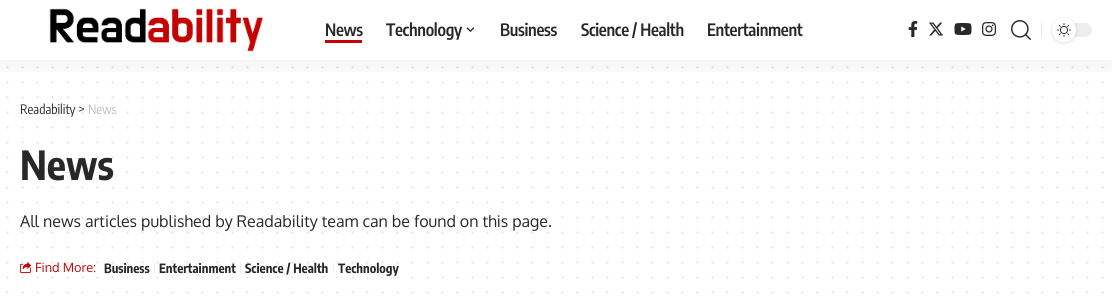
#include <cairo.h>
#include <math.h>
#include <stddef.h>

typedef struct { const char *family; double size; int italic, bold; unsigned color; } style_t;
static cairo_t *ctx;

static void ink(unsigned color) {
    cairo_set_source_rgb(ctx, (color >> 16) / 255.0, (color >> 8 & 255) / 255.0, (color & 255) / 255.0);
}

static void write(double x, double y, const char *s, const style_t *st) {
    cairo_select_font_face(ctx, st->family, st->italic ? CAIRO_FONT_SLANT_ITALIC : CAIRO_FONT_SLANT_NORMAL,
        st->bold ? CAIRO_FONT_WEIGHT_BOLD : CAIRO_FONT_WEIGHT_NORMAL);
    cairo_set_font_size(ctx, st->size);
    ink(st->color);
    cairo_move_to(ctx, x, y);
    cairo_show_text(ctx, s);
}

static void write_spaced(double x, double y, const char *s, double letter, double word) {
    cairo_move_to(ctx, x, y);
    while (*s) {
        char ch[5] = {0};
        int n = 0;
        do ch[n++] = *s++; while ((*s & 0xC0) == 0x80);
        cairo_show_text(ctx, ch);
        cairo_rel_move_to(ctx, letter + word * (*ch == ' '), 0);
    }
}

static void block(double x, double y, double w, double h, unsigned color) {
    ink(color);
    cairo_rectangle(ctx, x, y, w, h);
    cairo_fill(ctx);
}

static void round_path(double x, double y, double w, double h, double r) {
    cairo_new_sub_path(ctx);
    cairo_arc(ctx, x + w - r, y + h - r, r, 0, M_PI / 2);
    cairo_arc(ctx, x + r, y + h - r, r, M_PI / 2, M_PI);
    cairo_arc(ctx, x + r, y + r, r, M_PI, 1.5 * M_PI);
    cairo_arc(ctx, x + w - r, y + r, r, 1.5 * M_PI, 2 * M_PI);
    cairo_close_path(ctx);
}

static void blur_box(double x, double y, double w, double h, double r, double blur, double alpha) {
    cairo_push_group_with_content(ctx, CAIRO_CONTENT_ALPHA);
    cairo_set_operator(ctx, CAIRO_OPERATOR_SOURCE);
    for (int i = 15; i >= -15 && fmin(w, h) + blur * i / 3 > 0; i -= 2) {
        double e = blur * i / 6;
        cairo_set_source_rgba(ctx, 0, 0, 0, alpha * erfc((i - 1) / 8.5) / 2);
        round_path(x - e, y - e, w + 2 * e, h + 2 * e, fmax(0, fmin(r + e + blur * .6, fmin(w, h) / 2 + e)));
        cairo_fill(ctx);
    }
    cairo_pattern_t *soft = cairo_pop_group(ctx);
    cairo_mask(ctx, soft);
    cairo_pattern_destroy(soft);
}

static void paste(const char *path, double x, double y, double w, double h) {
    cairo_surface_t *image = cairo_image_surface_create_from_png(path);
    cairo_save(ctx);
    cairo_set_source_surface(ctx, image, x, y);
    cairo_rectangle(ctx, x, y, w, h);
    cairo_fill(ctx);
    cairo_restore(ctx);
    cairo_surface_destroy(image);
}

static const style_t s1 = {"Encode Sans Condensed", 13, 0, 0, 0x282828};
static const style_t s2 = {"Encode Sans Condensed", 13, 0, 0, 0xbfbfbf};
static const style_t s3 = {"Encode Sans Condensed", 40, 0, 1, 0x282828};
static const style_t s4 = {"Oxygen", 16, 0, 0, 0x282828};
static const style_t s5 = {"Oxygen", 12.75, 0, 0, 0xc50202};
static const style_t s6 = {"Encode Sans Condensed", 12.75, 0, 1, 0x282828};

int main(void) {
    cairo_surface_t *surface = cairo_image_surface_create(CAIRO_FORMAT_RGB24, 1112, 301);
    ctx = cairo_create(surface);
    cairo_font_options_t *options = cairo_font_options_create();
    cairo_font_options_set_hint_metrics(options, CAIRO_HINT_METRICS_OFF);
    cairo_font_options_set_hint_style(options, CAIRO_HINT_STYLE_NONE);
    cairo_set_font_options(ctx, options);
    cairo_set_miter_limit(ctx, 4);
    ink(0xffffff);
    cairo_paint(ctx);
    cairo_new_path(ctx);
    cairo_move_to(ctx, 7.5, 67.5);
    cairo_line_to(ctx, 1102.7, 67.5);
    ink(0xdfdfdf);
    cairo_set_line_cap(ctx, CAIRO_LINE_CAP_ROUND);
    cairo_set_dash(ctx, (double[]){0, 15}, 2, 0);
    cairo_stroke(ctx);
    cairo_new_path(ctx);
    cairo_move_to(ctx, 7.5, 82.5);
    cairo_line_to(ctx, 1102.7, 82.5);
    cairo_stroke(ctx);
    cairo_new_path(ctx);
    cairo_move_to(ctx, 7.5, 97.5);
    cairo_line_to(ctx, 1102.7, 97.5);
    cairo_stroke(ctx);
    cairo_save(ctx);
    cairo_rectangle(ctx, 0, 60, 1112, 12);
    cairo_clip(ctx);
    ink(0x000000);
    blur_box(0, 4, 1112, 60, 0, 15, 0.07);
    cairo_restore(ctx);
    paste("pic1.png", 49, 8, 215, 44);
    cairo_select_font_face(ctx, "Encode Sans Condensed SemiBold", CAIRO_FONT_SLANT_NORMAL, CAIRO_FONT_WEIGHT_NORMAL);
    cairo_set_font_size(ctx, 17);
    ink(0x282828);
    write_spaced(325, 36, "News", -0.3, 0);
    block(325, 40, 37, 3, 0xc50202);
    ink(0x282828);
    write_spaced(386, 36, "Technology", -0.3, 0);
    paste("pic2.png", 466, 27, 9, 5);
    write_spaced(500, 36, "Business", -0.3, 0);
    write_spaced(581, 36, "Science / Health", -0.3, 0);
    write_spaced(707, 36, "Entertainment", -0.3, 0);
    paste("pic3.png", 908, 21, 10, 16);
    paste("pic4.png", 929, 22, 15, 14);
    paste("pic5.png", 954, 23, 18, 12);
    paste("pic6.png", 982, 22, 14, 14);
    paste("pic7.png", 1011, 20, 20, 20);
    block(1041, 23, 1, 14, 0xe4e4e4);
    ink(0xededed);
    round_path(1052, 23, 40, 14, 7);
    cairo_fill(ctx);
    ink(0x000000);
    blur_box(1052, 19, 24, 24, 12, 2, 0.12);
    ink(0xffffff);
    cairo_arc(ctx, 1064, 30, 12, 0, 2 * M_PI);
    cairo_fill(ctx);
    paste("pic8.png", 1057, 23, 14, 14);
    cairo_new_path(ctx);
    cairo_move_to(ctx, 7.5, 112.5);
    cairo_line_to(ctx, 1102.7, 112.5);
    ink(0xdfdfdf);
    cairo_stroke(ctx);
    cairo_new_path(ctx);
    cairo_move_to(ctx, 7.5, 127.5);
    cairo_line_to(ctx, 1102.7, 127.5);
    cairo_stroke(ctx);
    cairo_new_path(ctx);
    cairo_move_to(ctx, 7.5, 142.5);
    cairo_line_to(ctx, 1102.7, 142.5);
    cairo_stroke(ctx);
    cairo_new_path(ctx);
    cairo_move_to(ctx, 7.5, 157.5);
    cairo_line_to(ctx, 1102.7, 157.5);
    cairo_stroke(ctx);
    cairo_new_path(ctx);
    cairo_move_to(ctx, 7.5, 172.5);
    cairo_line_to(ctx, 1102.7, 172.5);
    cairo_stroke(ctx);
    cairo_new_path(ctx);
    cairo_move_to(ctx, 7.5, 187.5);
    cairo_line_to(ctx, 1102.7, 187.5);
    cairo_stroke(ctx);
    cairo_new_path(ctx);
    cairo_move_to(ctx, 7.5, 202.5);
    cairo_line_to(ctx, 1102.7, 202.5);
    cairo_stroke(ctx);
    cairo_new_path(ctx);
    cairo_move_to(ctx, 7.5, 217.5);
    cairo_line_to(ctx, 1102.7, 217.5);
    cairo_stroke(ctx);
    cairo_new_path(ctx);
    cairo_move_to(ctx, 7.5, 232.5);
    cairo_line_to(ctx, 1102.7, 232.5);
    cairo_stroke(ctx);
    cairo_new_path(ctx);
    cairo_move_to(ctx, 7.5, 247.5);
    cairo_line_to(ctx, 1102.7, 247.5);
    cairo_stroke(ctx);
    cairo_new_path(ctx);
    cairo_move_to(ctx, 7.5, 262.5);
    cairo_line_to(ctx, 1102.7, 262.5);
    cairo_stroke(ctx);
    cairo_new_path(ctx);
    cairo_move_to(ctx, 7.5, 277.5);
    cairo_line_to(ctx, 1102.7, 277.5);
    cairo_stroke(ctx);
    cairo_new_path(ctx);
    cairo_move_to(ctx, 7.5, 292.5);
    cairo_line_to(ctx, 1102.7, 292.5);
    cairo_stroke(ctx);
    write(20, 114, "Readability >", &s1);
    write(88, 114, "News", &s2);
    write(20, 180, "News", &s3);
    write(20, 227, "All news articles published by Readability team can be found on this page.", &s4);
    paste("pic9.png", 20, 262, 11, 11);
    write(35, 272, "Find More:", &s5);
    write(104, 273, "Business", &s6);
    block(154, 263, 1, 10, 0xededed);
    write(159, 273, "Entertainment", &s6);
    block(240, 263, 1, 10, 0xededed);
    write(245, 273, "Science / Health", &s6);
    block(333, 263, 1, 10, 0xededed);
    write(338, 273, "Technology", &s6);
    cairo_surface_write_to_png(surface, "screenshot.png");
    cairo_font_options_destroy(options);
    cairo_destroy(ctx);
    cairo_surface_destroy(surface);
    return 0;
}
